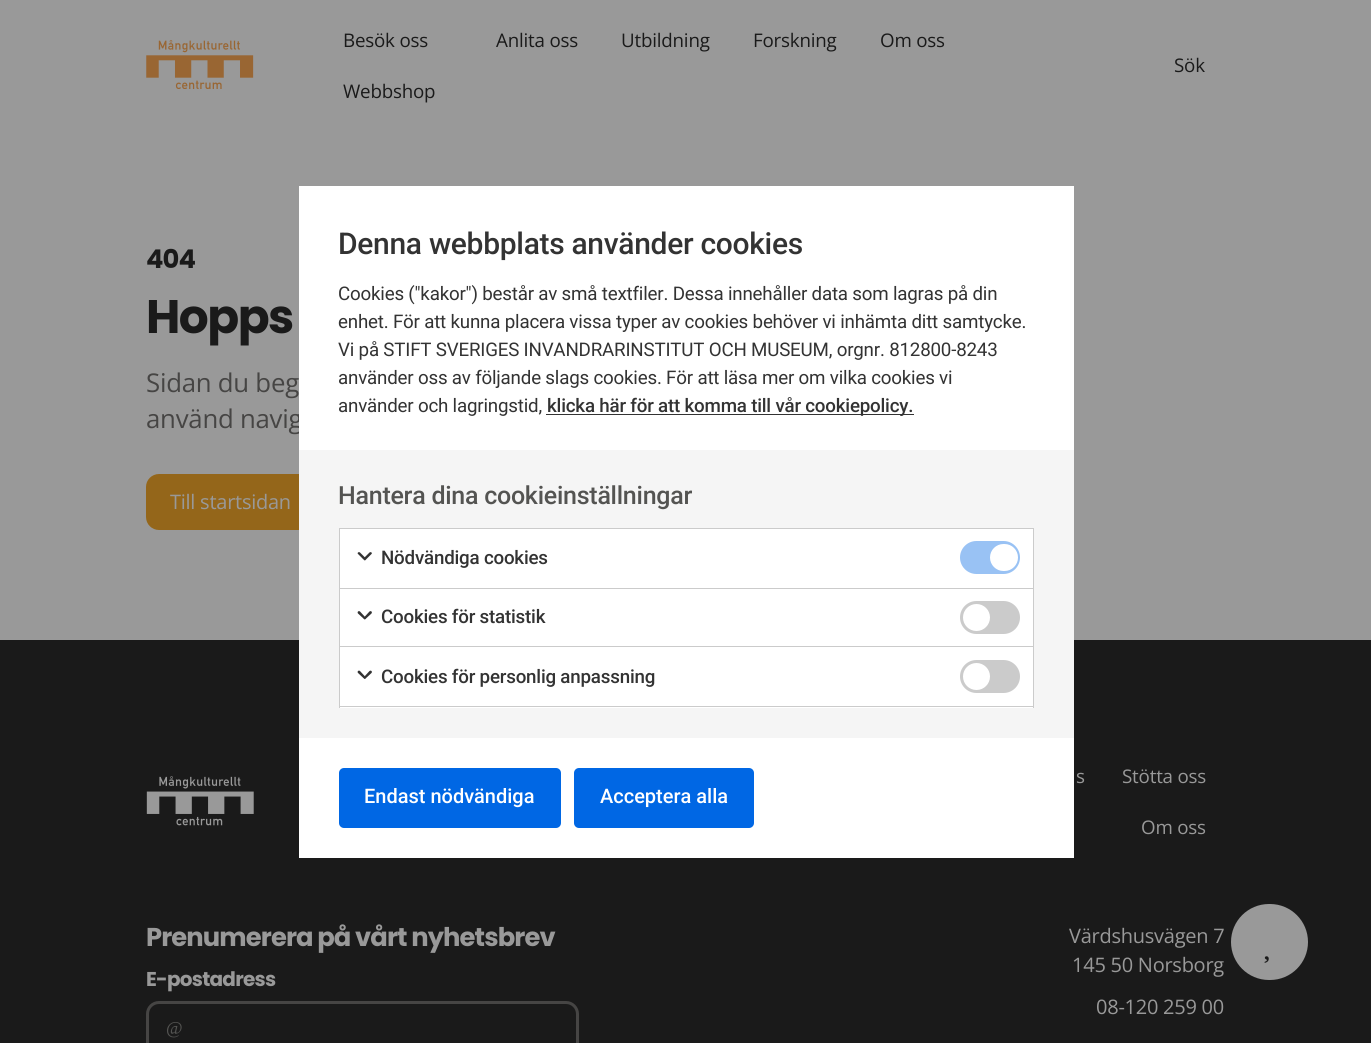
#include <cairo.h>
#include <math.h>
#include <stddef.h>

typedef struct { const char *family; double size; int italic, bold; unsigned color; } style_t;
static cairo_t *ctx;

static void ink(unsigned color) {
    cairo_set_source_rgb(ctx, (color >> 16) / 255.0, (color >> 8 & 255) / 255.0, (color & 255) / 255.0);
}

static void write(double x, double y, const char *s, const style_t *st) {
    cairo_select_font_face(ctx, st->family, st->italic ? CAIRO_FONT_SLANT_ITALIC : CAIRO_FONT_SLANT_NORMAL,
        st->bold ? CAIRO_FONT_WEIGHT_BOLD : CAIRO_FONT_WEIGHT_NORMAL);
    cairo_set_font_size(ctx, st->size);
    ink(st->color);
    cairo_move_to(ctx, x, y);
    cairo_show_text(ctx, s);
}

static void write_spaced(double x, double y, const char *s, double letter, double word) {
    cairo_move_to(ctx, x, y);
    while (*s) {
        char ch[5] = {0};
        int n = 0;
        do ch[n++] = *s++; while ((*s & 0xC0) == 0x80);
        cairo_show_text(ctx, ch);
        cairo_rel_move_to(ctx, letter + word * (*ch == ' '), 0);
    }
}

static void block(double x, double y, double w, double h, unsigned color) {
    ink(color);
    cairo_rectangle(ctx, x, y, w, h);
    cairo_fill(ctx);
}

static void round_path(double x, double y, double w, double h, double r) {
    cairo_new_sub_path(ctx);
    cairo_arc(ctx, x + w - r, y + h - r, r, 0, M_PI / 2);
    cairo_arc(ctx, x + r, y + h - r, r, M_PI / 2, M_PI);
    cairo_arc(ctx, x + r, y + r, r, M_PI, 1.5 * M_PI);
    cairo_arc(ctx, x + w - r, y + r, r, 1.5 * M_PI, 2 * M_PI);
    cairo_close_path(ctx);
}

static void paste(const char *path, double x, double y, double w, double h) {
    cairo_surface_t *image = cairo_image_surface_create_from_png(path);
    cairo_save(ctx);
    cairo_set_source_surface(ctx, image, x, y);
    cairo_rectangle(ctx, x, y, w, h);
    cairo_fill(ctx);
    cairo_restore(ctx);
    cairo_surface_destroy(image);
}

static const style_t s1 = {"Roboto Medium", 20, 0, 0, 0xffffff};
static const style_t s2 = {"Liberation Serif", 18, 0, 0, 0x545452};

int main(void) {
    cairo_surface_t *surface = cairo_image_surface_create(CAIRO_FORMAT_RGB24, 1371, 1043);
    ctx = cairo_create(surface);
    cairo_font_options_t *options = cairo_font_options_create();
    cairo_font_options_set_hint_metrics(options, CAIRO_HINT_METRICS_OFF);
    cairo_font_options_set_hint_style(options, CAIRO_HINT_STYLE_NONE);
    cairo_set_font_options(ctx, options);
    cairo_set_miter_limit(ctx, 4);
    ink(0x999999);
    cairo_paint(ctx);
    paste("pic1.png", 146, 40, 108, 49);
    cairo_select_font_face(ctx, "Open Sans", CAIRO_FONT_SLANT_NORMAL, CAIRO_FONT_WEIGHT_NORMAL);
    cairo_set_font_size(ctx, 18.75);
    ink(0x1a1a1a);
    write_spaced(343, 47, "Besök oss", -0.2, 0);
    write_spaced(496, 47, "Anlita oss", -0.2, 0);
    write_spaced(621, 47, "Utbildning", -0.2, 0);
    write_spaced(753, 47, "Forskning", -0.2, 0);
    write_spaced(880, 47, "Om oss", -0.2, 0);
    write_spaced(343, 98, "Webbshop", -0.2, 0);
    write_spaced(1174, 72, "Sök", -0.2, 0);
    cairo_select_font_face(ctx, "Poppins", CAIRO_FONT_SLANT_NORMAL, CAIRO_FONT_WEIGHT_BOLD);
    cairo_set_font_size(ctx, 25.8);
    write_spaced(146, 268, "404", -0.9, 0);
    cairo_set_font_size(ctx, 47);
    write_spaced(146, 333, "Hopps", -1.5, 0);
    cairo_select_font_face(ctx, "Open Sans", CAIRO_FONT_SLANT_NORMAL, CAIRO_FONT_WEIGHT_NORMAL);
    cairo_set_font_size(ctx, 25.8);
    ink(0x464544);
    write_spaced(146, 392, "Sidan du beg", -0.25, 0);
    write_spaced(146, 428, "använd navig", -0.25, 0);
    ink(0x94661a);
    round_path(146, 474, 194, 56, 13);
    cairo_fill(ctx);
    cairo_set_font_size(ctx, 20);
    ink(0x999999);
    write_spaced(170, 509, "Till startsidan", -0.25, 0);
    block(0, 640, 1371, 403, 0x1a1a1a);
    block(299, 186, 775, 672, 0xffffff);
    cairo_select_font_face(ctx, "Roboto Medium", CAIRO_FONT_SLANT_NORMAL, CAIRO_FONT_WEIGHT_NORMAL);
    cairo_set_font_size(ctx, 30);
    ink(0x333333);
    write_spaced(338, 254, "Denna webbplats använder cookies", -0.3, 0);
    cairo_select_font_face(ctx, "Roboto", CAIRO_FONT_SLANT_NORMAL, CAIRO_FONT_WEIGHT_NORMAL);
    cairo_set_font_size(ctx, 18.75);
    write_spaced(338, 300, "Cookies (\"kakor\") består av små textfiler. Dessa innehåller data som lagras på din", -0.2, 0);
    write_spaced(338, 328, "enhet. För att kunna placera vissa typer av cookies behöver vi inhämta ditt samtycke.", -0.2, 0);
    write_spaced(338, 356, "Vi på STIFT SVERIGES INVANDRARINSTITUT OCH MUSEUM, orgnr. 812800-8243", -0.2, 0);
    write_spaced(338, 384, "använder oss av följande slags cookies. För att läsa mer om vilka cookies vi", -0.2, 0);
    write_spaced(338, 412, "använder och lagringstid,", -0.2, 0);
    block(546, 414, 368, 1, 0x333333);
    cairo_select_font_face(ctx, "Roboto Medium", CAIRO_FONT_SLANT_NORMAL, CAIRO_FONT_WEIGHT_NORMAL);
    write_spaced(547, 412, "klicka här för att komma till vår cookiepolicy.", -0.2, 0);
    block(299, 450, 775, 288, 0xf5f5f5);
    cairo_set_font_size(ctx, 25);
    ink(0x545452);
    write_spaced(338, 504, "Hantera dina cookieinställningar", -0.25, 0);
    ink(0xffffff);
    cairo_rectangle(ctx, 339.5, 528.5, 694, 60);
    cairo_fill_preserve(ctx);
    ink(0xcbcbcb);
    cairo_set_line_width(ctx, 1);
    cairo_stroke(ctx);
    ink(0x333333);
    cairo_new_path(ctx);
    cairo_move_to(ctx, 358, 552.5);
    cairo_curve_to(ctx, 358.5, 552, 359.5, 552, 360, 552.5);
    cairo_line_to(ctx, 366, 558.5);
    cairo_line_to(ctx, 364.5, 560.5);
    cairo_line_to(ctx, 358, 554);
    cairo_curve_to(ctx, 357.5, 553.5, 357.5, 553, 358, 552.5);
    cairo_close_path(ctx);
    cairo_fill(ctx);
    cairo_new_path(ctx);
    cairo_move_to(ctx, 371.5, 552.5);
    cairo_curve_to(ctx, 372, 553, 372, 553.5, 371.5, 554);
    cairo_line_to(ctx, 365, 560.5);
    cairo_line_to(ctx, 363.5, 558.5);
    cairo_line_to(ctx, 369.5, 552.5);
    cairo_curve_to(ctx, 370, 552, 371, 552, 371.5, 552.5);
    cairo_close_path(ctx);
    cairo_fill(ctx);
    cairo_set_font_size(ctx, 18.75);
    write_spaced(381, 564, "Nödvändiga cookies", -0.2, 0);
    ink(0x99c2f4);
    round_path(960, 541, 60, 33, 16.5);
    cairo_fill(ctx);
    ink(0xffffff);
    round_path(990, 544, 28, 27, 13.5);
    cairo_fill(ctx);
    block(340, 589, 693, 119, 0xffffff);
    block(1033, 589, 1, 119, 0xcbcbcb);
    block(339, 646, 695, 1, 0xcbcbcb);
    block(339, 589, 1, 59, 0xcbcbcb);
    ink(0x333333);
    cairo_new_path(ctx);
    cairo_move_to(ctx, 358, 611.5);
    cairo_curve_to(ctx, 358.5, 611, 359.5, 611, 360, 611.5);
    cairo_line_to(ctx, 366, 618);
    cairo_line_to(ctx, 364.5, 619.5);
    cairo_line_to(ctx, 358, 613.5);
    cairo_curve_to(ctx, 357.5, 613, 357.5, 612, 358, 611.5);
    cairo_close_path(ctx);
    cairo_fill(ctx);
    cairo_new_path(ctx);
    cairo_move_to(ctx, 371.5, 611.5);
    cairo_curve_to(ctx, 372, 612, 372, 613, 371.5, 613.5);
    cairo_line_to(ctx, 365, 619.5);
    cairo_line_to(ctx, 363.5, 618);
    cairo_line_to(ctx, 369.5, 611.5);
    cairo_curve_to(ctx, 370, 611, 371, 611, 371.5, 611.5);
    cairo_close_path(ctx);
    cairo_fill(ctx);
    write_spaced(381, 623, "Cookies för statistik", -0.2, 0);
    ink(0xcbcbcb);
    round_path(960, 601, 60, 33, 16.5);
    cairo_fill(ctx);
    ink(0xffffff);
    cairo_arc(ctx, 976.5, 617.5, 13.5, 0, 2 * M_PI);
    cairo_fill(ctx);
    block(339, 706, 695, 1, 0xcbcbcb);
    block(339, 648, 1, 60, 0xcbcbcb);
    ink(0x333333);
    cairo_new_path(ctx);
    cairo_move_to(ctx, 358, 671);
    cairo_curve_to(ctx, 358.5, 670.5, 359.5, 670.5, 360, 671);
    cairo_line_to(ctx, 366, 677.5);
    cairo_line_to(ctx, 364.5, 679);
    cairo_line_to(ctx, 358, 673);
    cairo_curve_to(ctx, 357.5, 672.5, 357.5, 671.5, 358, 671);
    cairo_close_path(ctx);
    cairo_fill(ctx);
    cairo_new_path(ctx);
    cairo_move_to(ctx, 371.5, 671);
    cairo_curve_to(ctx, 372, 671.5, 372, 672.5, 371.5, 673);
    cairo_line_to(ctx, 365, 679);
    cairo_line_to(ctx, 363.5, 677.5);
    cairo_line_to(ctx, 369.5, 671);
    cairo_curve_to(ctx, 370, 670.5, 371, 670.5, 371.5, 671);
    cairo_close_path(ctx);
    cairo_fill(ctx);
    write_spaced(381, 683, "Cookies för personlig anpassning", -0.2, 0);
    ink(0xcbcbcb);
    round_path(960, 660, 60, 33, 16.5);
    cairo_fill(ctx);
    ink(0xffffff);
    cairo_arc(ctx, 976.5, 676.5, 13.5, 0, 2 * M_PI);
    cairo_fill(ctx);
    ink(0x0067e4);
    round_path(339, 768, 222, 60, 5);
    cairo_fill(ctx);
    write(364, 803, "Endast nödvändiga", &s1);
    ink(0x0067e4);
    round_path(574, 768, 180, 60, 5);
    cairo_fill(ctx);
    write(600, 803, "Acceptera alla", &s1);
    paste("pic2.png", 146, 776, 108, 50);
    cairo_select_font_face(ctx, "Open Sans", CAIRO_FONT_SLANT_NORMAL, CAIRO_FONT_WEIGHT_NORMAL);
    cairo_set_font_size(ctx, 18.75);
    ink(0x999999);
    write_spaced(1076, 783, "s", -0.2, 0);
    write_spaced(1122, 783, "Stötta oss", -0.2, 0);
    write_spaced(1141, 834, "Om oss", -0.2, 0);
    cairo_select_font_face(ctx, "Poppins", CAIRO_FONT_SLANT_NORMAL, CAIRO_FONT_WEIGHT_BOLD);
    cairo_set_font_size(ctx, 25.8);
    write_spaced(146, 946, "Prenumerera på vårt nyhetsbrev", -0.9, 0);
    cairo_set_font_size(ctx, 20);
    write_spaced(146, 986, "E-postadress", -0.75, 0);
    round_path(147.5, 1002.5, 430, 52, 11.5);
    ink(0x464544);
    cairo_set_line_width(ctx, 3);
    cairo_stroke(ctx);
    write(166, 1034, "@", &s2);
    cairo_select_font_face(ctx, "Open Sans", CAIRO_FONT_SLANT_NORMAL, CAIRO_FONT_WEIGHT_NORMAL);
    cairo_set_font_size(ctx, 20);
    ink(0x999999);
    write_spaced(1069, 943, "Värdshusvägen 7", -0.25, 0);
    write_spaced(1072, 972, "145 50 Norsborg", -0.25, 0);
    write_spaced(1096, 1014, "08-120 259 00", -0.25, 0);
    round_path(1231, 904, 77, 76, 38);
    cairo_fill(ctx);
    paste("pic3.png", 1264, 956, 5, 7);
    cairo_surface_write_to_png(surface, "screenshot.png");
    cairo_font_options_destroy(options);
    cairo_destroy(ctx);
    cairo_surface_destroy(surface);
    return 0;
}
